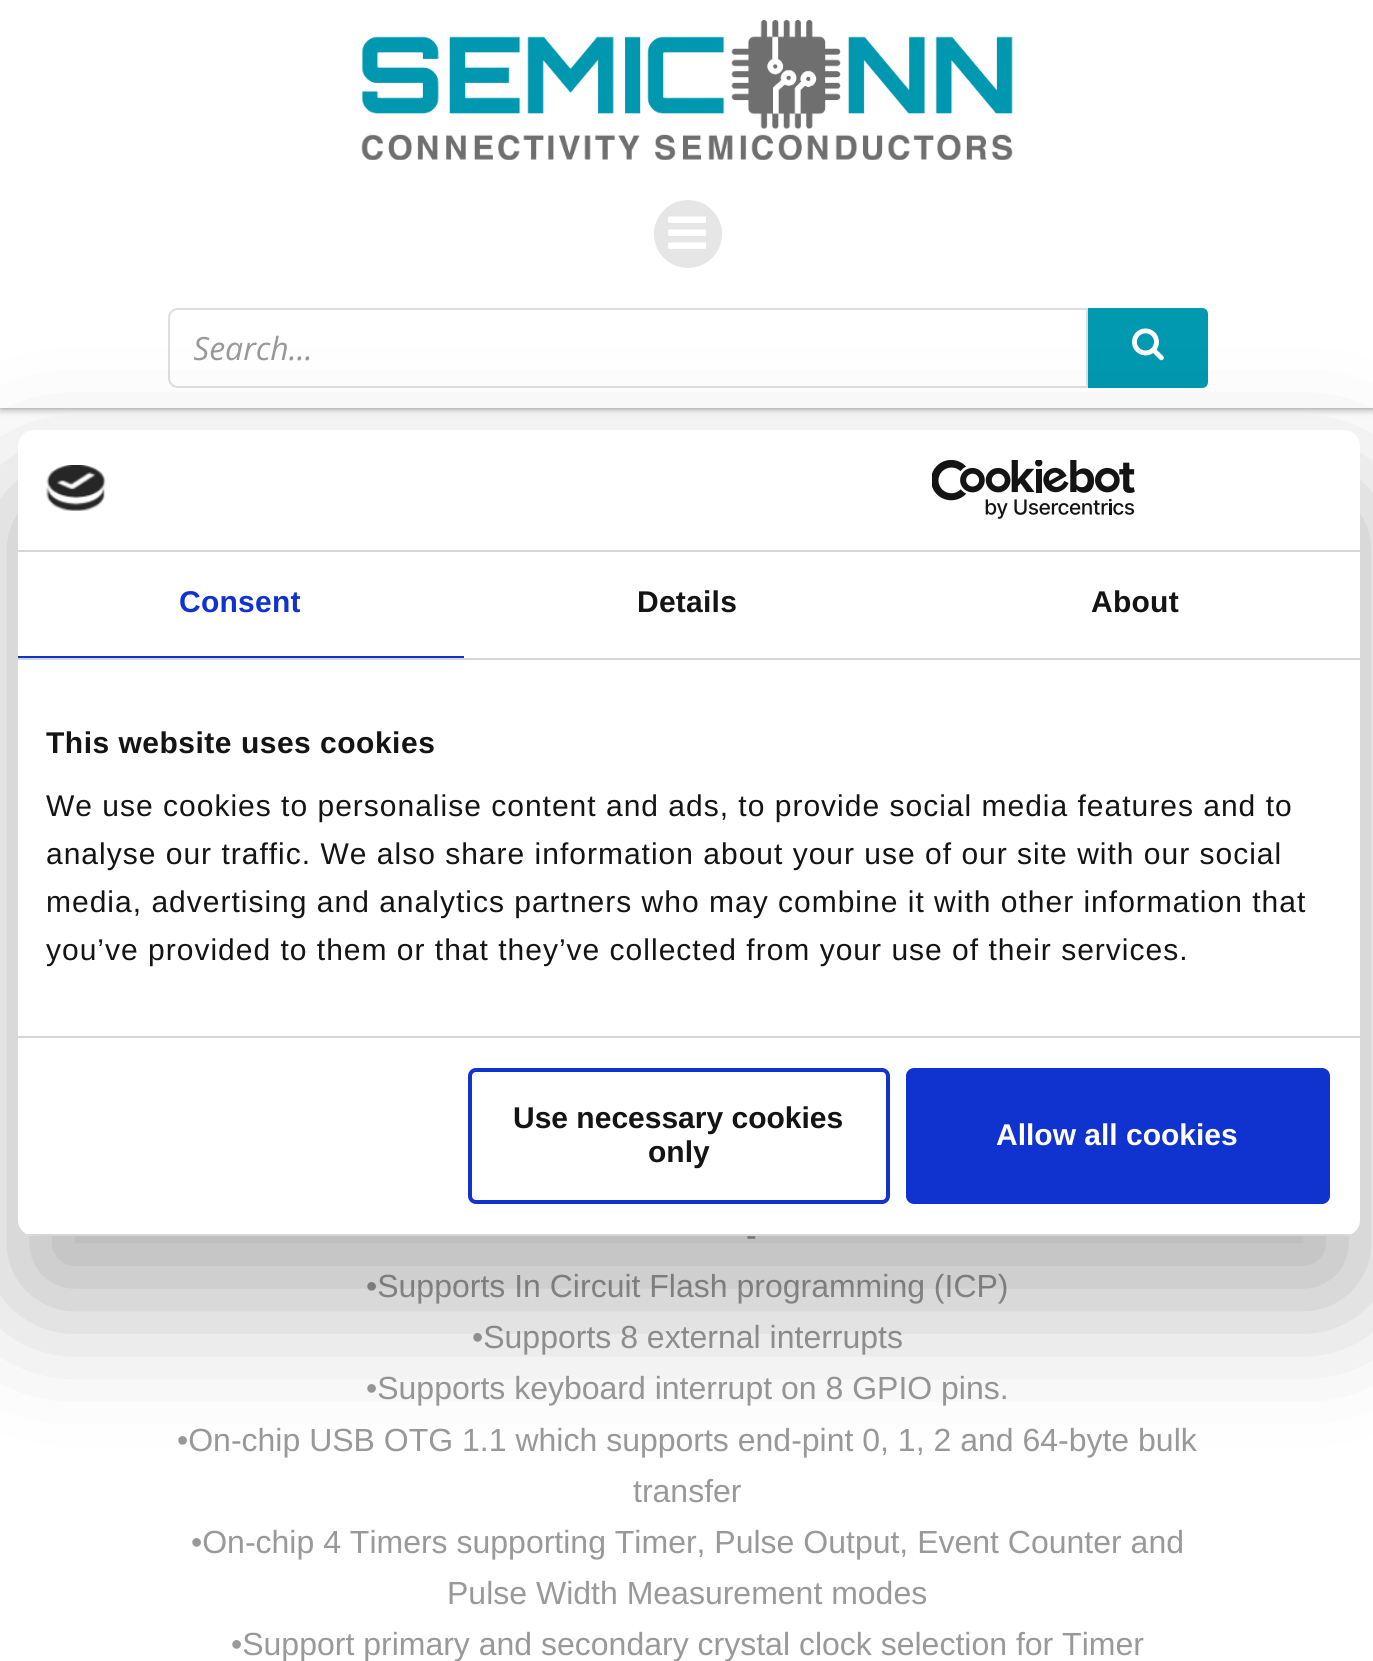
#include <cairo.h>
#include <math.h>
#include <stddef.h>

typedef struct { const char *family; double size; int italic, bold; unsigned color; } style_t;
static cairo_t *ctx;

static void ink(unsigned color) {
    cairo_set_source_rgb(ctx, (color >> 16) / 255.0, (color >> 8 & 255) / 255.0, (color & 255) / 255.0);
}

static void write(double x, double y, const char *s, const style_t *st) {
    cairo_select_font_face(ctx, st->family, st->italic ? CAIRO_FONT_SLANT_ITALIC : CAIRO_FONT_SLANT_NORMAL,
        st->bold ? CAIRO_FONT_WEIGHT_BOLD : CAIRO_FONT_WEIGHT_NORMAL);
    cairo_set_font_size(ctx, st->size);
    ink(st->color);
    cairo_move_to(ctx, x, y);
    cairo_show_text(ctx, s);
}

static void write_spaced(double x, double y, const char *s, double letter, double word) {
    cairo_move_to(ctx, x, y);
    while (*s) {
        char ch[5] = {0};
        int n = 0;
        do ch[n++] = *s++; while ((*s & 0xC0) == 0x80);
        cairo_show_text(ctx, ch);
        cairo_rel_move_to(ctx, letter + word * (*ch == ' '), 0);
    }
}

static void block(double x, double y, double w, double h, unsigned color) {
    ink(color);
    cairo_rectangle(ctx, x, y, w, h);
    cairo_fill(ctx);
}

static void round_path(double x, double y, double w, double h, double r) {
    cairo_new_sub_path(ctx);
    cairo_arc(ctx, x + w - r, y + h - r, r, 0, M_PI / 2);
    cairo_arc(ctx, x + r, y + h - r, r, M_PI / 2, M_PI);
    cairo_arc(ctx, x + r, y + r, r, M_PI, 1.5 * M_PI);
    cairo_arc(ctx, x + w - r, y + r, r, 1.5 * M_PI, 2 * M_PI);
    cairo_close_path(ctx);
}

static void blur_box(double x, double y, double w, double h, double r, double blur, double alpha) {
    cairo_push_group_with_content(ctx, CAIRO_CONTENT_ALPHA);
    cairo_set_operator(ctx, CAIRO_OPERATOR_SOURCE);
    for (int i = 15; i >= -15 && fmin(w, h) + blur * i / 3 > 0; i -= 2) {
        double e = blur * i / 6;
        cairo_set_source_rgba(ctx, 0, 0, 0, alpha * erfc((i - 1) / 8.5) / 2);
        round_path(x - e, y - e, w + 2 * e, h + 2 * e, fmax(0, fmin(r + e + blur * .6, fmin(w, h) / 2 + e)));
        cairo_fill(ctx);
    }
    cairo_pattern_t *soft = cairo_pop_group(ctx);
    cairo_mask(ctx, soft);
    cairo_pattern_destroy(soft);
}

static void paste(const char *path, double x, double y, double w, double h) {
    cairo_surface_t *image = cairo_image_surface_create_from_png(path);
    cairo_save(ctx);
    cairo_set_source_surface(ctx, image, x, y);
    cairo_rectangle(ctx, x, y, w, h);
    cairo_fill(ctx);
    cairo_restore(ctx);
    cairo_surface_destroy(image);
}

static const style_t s1 = {"Open Sans", 32, 1, 0, 0x999999};
static const style_t s2 = {"Liberation Sans", 32, 0, 0, 0x999999};
static const style_t s3 = {"Liberation Sans", 30, 0, 1, 0x141414};
static const style_t s4 = {"Liberation Sans", 30, 0, 1, 0xffffff};

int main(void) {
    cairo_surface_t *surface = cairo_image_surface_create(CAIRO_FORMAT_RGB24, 1373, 1661);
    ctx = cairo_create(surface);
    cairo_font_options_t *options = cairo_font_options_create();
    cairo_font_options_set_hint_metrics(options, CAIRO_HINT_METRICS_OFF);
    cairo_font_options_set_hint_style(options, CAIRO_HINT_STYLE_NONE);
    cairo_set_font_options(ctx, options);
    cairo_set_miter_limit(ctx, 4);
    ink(0xffffff);
    cairo_paint(ctx);
    ink(0x000000);
    blur_box(0, 0, 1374, 408, 0, 4, 0.5);
    block(0, 0, 1373, 408, 0xffffff);
    paste("pic1.png", 361, 20, 652, 140);
    ink(0xe6e6e6);
    cairo_arc(ctx, 688, 234, 34, 0, 2 * M_PI);
    cairo_fill(ctx);
    paste("pic2.png", 668, 216, 38, 33);
    cairo_new_path(ctx);
    cairo_move_to(ctx, 178, 309);
    cairo_line_to(ctx, 1087, 309);
    cairo_line_to(ctx, 1087, 387);
    cairo_line_to(ctx, 178, 387);
    cairo_curve_to(ctx, 173, 387, 169, 383, 169, 378);
    cairo_line_to(ctx, 169, 318);
    cairo_curve_to(ctx, 169, 313, 173, 309, 178, 309);
    cairo_close_path(ctx);
    ink(0xdedede);
    cairo_stroke(ctx);
    cairo_save(ctx);
    cairo_rectangle(ctx, 194, 326, 868, 44);
    cairo_clip(ctx);
    write(193, 360, "Search...", &s1);
    cairo_restore(ctx);
    ink(0x0099b0);
    cairo_new_path(ctx);
    cairo_move_to(ctx, 1088, 308);
    cairo_line_to(ctx, 1202, 308);
    cairo_curve_to(ctx, 1205.5, 308, 1208, 310.5, 1208, 314);
    cairo_line_to(ctx, 1208, 382);
    cairo_curve_to(ctx, 1208, 385.5, 1205.5, 388, 1202, 388);
    cairo_line_to(ctx, 1088, 388);
    cairo_close_path(ctx);
    cairo_fill(ctx);
    paste("pic3.png", 1132, 328, 32, 33);
    write(746, 1246, "-", &s2);
    write(366, 1297, "•Supports In Circuit Flash programming (ICP)", &s2);
    write(472, 1348, "•Supports 8 external interrupts", &s2);
    write(366, 1399, "•Supports keyboard interrupt on 8 GPIO pins.", &s2);
    write(177, 1451, "•On-chip USB OTG 1.1 which supports end-pint 0, 1, 2 and 64-byte bulk", &s2);
    write(633, 1502, "transfer", &s2);
    write(191, 1553, "•On-chip 4 Timers supporting Timer, Pulse Output, Event Counter and", &s2);
    write(447, 1604, "Pulse Width Measurement modes", &s2);
    write(231, 1655, "•Support primary and secondary crystal clock selection for Timer", &s2);
    ink(0x000000);
    blur_box(18, 494, 1342, 806, 16, 68, 0.3);
    ink(0xffffff);
    round_path(18, 430, 1342, 806, 16);
    cairo_fill(ctx);
    block(18, 550, 1342, 2, 0xd6d6d6);
    paste("pic4.png", 46, 465, 60, 46);
    paste("pic5.png", 932, 460, 203, 59);
    block(18, 658, 1342, 2, 0xd6d6d6);
    block(18, 656, 446, 2, 0x1032cf);
    cairo_select_font_face(ctx, "Liberation Sans", CAIRO_FONT_SLANT_NORMAL, CAIRO_FONT_WEIGHT_BOLD);
    cairo_set_font_size(ctx, 30);
    write_spaced(179, 612, "Consent", 0.25, 0);
    ink(0x141414);
    write_spaced(637, 612, "Details", 0.25, 0);
    write_spaced(1091, 612, "About", 0.25, 0);
    block(18, 1036, 1342, 2, 0xd6d6d6);
    ink(0x141414);
    write_spaced(46, 753, "This website uses cookies", 0.5, 0);
    cairo_select_font_face(ctx, "Liberation Sans", CAIRO_FONT_SLANT_NORMAL, CAIRO_FONT_WEIGHT_NORMAL);
    write_spaced(46, 816, "We use cookies to personalise content and ads, to provide social media features and to", 1, 0);
    write_spaced(46, 864, "analyse our traffic. We also share information about your use of our site with our social", 1, 0);
    write_spaced(46, 912, "media, advertising and analytics partners who may combine it with other information that", 1, 0);
    write_spaced(46, 960, "you’ve provided to them or that they’ve collected from your use of their services.", 1, 0);
    cairo_save(ctx);
    round_path(18, 430, 1342, 806, 16);
    cairo_clip(ctx);
    block(18, 1234, 1342, 2, 0xd6d6d6);
    cairo_restore(ctx);
    round_path(470, 1070, 418, 132, 6);
    ink(0x1032cf);
    cairo_set_line_width(ctx, 4);
    cairo_stroke(ctx);
    write(513, 1128, "Use necessary cookies", &s3);
    write(648, 1162, "only", &s3);
    ink(0x1032cf);
    round_path(908, 1070, 420, 132, 6);
    cairo_fill_preserve(ctx);
    cairo_stroke(ctx);
    write(996, 1145, "Allow all cookies", &s4);
    cairo_surface_write_to_png(surface, "screenshot.png");
    cairo_font_options_destroy(options);
    cairo_destroy(ctx);
    cairo_surface_destroy(surface);
    return 0;
}
